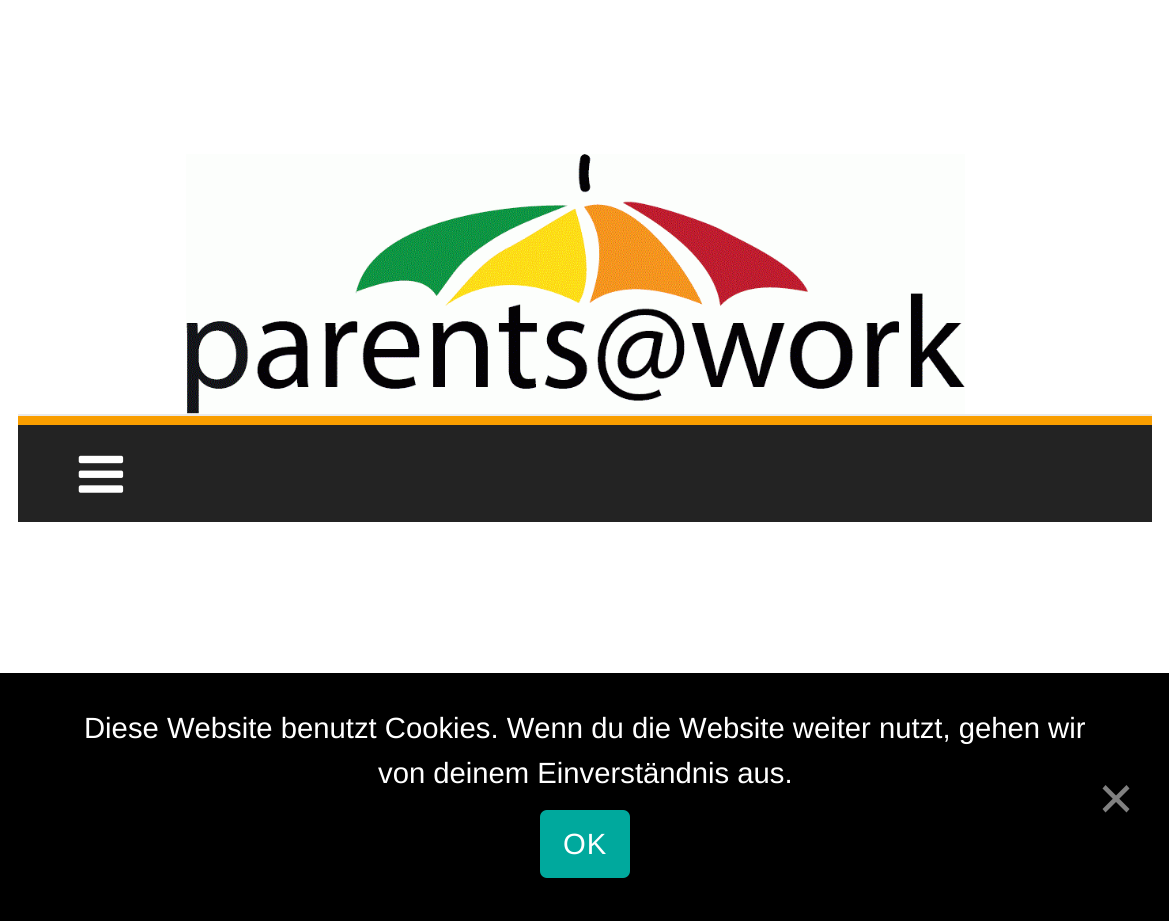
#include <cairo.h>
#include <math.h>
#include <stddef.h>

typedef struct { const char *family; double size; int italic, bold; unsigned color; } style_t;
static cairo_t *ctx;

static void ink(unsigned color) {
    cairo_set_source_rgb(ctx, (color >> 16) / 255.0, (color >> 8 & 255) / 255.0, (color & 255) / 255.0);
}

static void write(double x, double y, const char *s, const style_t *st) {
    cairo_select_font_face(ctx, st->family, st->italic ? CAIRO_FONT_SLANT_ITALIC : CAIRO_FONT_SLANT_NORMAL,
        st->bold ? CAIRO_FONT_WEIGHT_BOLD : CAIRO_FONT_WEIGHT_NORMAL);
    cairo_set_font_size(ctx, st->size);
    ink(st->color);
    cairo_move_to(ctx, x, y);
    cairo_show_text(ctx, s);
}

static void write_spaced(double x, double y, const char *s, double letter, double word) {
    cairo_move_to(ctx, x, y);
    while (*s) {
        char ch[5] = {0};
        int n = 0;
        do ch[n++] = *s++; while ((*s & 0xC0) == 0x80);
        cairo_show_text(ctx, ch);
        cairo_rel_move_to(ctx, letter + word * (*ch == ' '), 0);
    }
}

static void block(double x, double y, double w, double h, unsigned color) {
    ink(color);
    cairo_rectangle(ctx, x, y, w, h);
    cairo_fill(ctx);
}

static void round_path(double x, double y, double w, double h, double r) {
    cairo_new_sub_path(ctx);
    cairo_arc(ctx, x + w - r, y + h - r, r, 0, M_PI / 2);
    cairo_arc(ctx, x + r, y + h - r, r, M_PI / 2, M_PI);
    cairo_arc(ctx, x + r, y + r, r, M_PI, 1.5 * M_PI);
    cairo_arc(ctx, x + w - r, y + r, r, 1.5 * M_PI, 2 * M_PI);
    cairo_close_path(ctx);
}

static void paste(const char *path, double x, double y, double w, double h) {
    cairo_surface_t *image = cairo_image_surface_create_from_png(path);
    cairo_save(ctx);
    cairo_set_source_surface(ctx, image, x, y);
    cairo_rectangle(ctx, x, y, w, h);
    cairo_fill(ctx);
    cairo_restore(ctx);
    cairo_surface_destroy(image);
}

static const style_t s1 = {"Liberation Sans", 29.25, 0, 0, 0xffffff};

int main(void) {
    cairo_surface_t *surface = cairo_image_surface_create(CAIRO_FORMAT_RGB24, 1169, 921);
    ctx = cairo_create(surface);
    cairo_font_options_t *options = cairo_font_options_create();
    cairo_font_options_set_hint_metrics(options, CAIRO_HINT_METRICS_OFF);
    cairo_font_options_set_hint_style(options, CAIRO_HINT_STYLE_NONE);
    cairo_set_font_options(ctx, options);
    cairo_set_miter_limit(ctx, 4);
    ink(0xffffff);
    cairo_paint(ctx);
    paste("pic1.png", 186, 154, 779, 260);
    block(18, 414, 1134, 2, 0xeaeaea);
    block(18, 425, 1134, 97, 0x232323);
    block(18, 416, 1134, 9, 0xf99e00);
    paste("pic2.png", 78, 455, 46, 38);
    block(0, 673, 1169, 248, 0x000000);
    write(84, 738, "Diese Website benutzt Cookies. Wenn du die Website weiter nutzt, gehen wir", &s1);
    write(378, 783, "von deinem Einverständnis aus.", &s1);
    ink(0x808080);
    cairo_new_path(ctx);
    cairo_move_to(ctx, 1126.5, 785);
    cairo_line_to(ctx, 1129.5, 788.5);
    cairo_line_to(ctx, 1105.5, 812.5);
    cairo_line_to(ctx, 1102.5, 809);
    cairo_close_path(ctx);
    cairo_fill(ctx);
    cairo_new_path(ctx);
    cairo_move_to(ctx, 1102.5, 788.5);
    cairo_line_to(ctx, 1105.5, 785);
    cairo_line_to(ctx, 1129.5, 809);
    cairo_line_to(ctx, 1126.5, 812.5);
    cairo_close_path(ctx);
    cairo_fill(ctx);
    ink(0x00a99d);
    round_path(540, 810, 90, 68, 7);
    cairo_fill(ctx);
    ink(0xffffff);
    write_spaced(563, 854, "OK", 1, 0);
    cairo_surface_write_to_png(surface, "screenshot.png");
    cairo_font_options_destroy(options);
    cairo_destroy(ctx);
    cairo_surface_destroy(surface);
    return 0;
}
